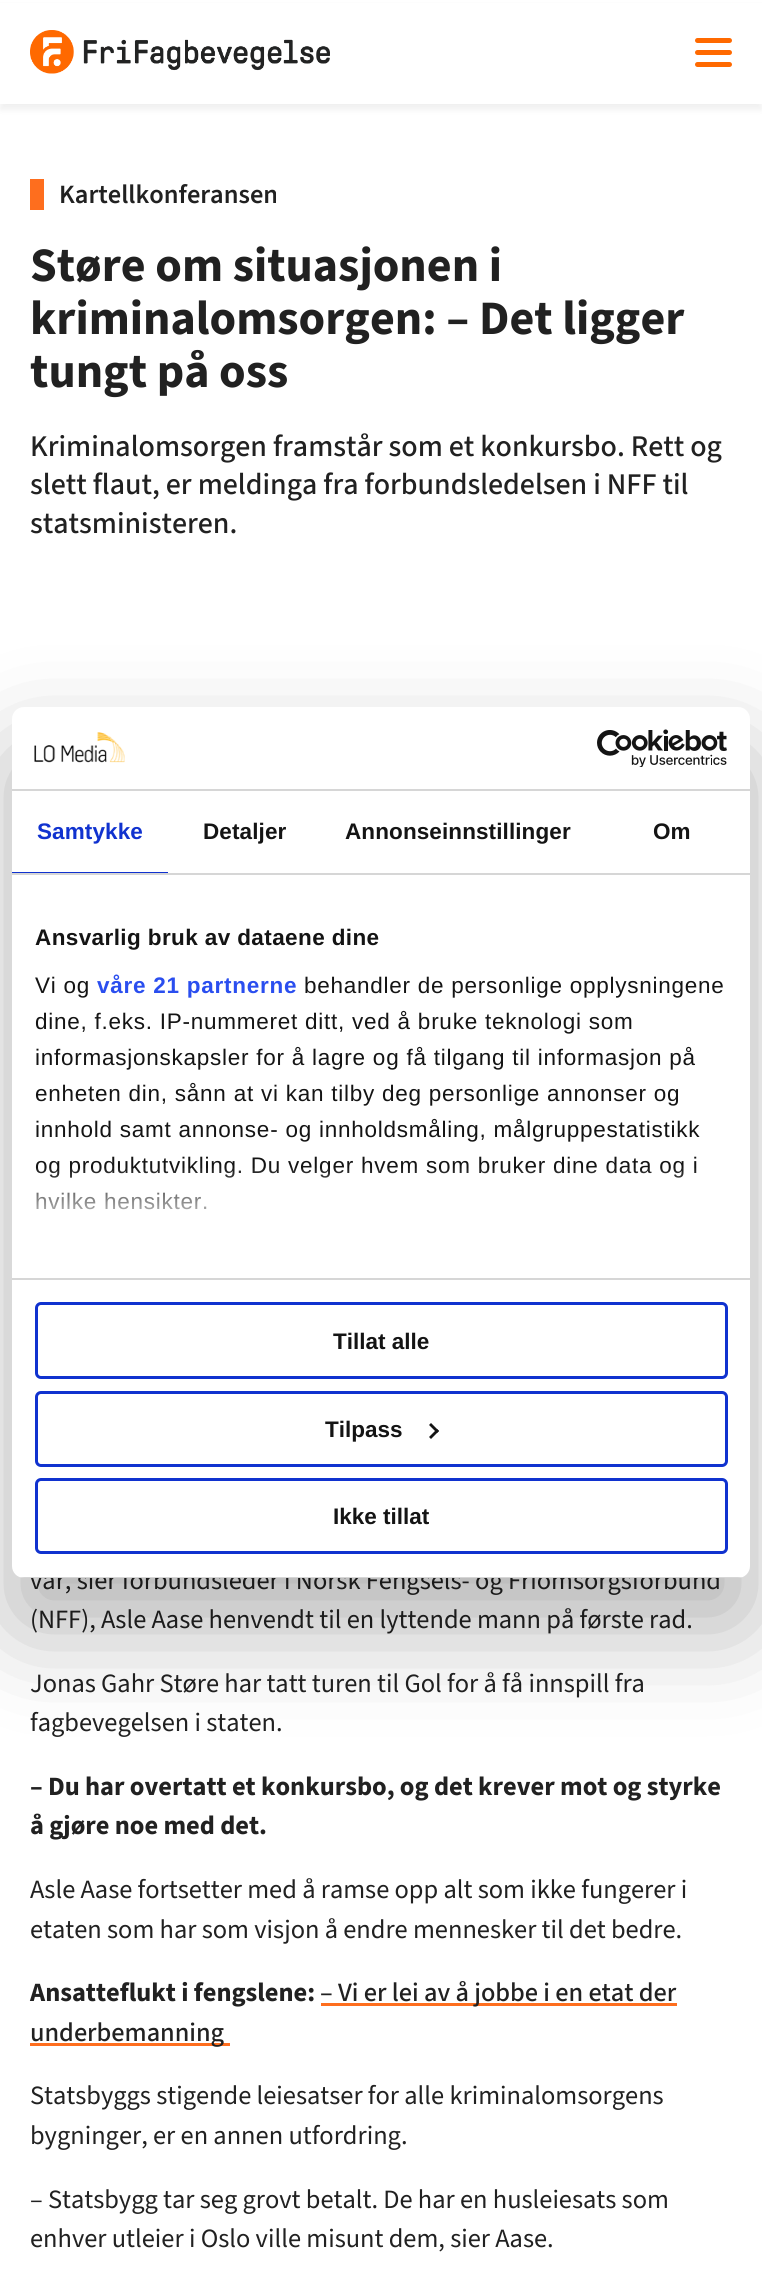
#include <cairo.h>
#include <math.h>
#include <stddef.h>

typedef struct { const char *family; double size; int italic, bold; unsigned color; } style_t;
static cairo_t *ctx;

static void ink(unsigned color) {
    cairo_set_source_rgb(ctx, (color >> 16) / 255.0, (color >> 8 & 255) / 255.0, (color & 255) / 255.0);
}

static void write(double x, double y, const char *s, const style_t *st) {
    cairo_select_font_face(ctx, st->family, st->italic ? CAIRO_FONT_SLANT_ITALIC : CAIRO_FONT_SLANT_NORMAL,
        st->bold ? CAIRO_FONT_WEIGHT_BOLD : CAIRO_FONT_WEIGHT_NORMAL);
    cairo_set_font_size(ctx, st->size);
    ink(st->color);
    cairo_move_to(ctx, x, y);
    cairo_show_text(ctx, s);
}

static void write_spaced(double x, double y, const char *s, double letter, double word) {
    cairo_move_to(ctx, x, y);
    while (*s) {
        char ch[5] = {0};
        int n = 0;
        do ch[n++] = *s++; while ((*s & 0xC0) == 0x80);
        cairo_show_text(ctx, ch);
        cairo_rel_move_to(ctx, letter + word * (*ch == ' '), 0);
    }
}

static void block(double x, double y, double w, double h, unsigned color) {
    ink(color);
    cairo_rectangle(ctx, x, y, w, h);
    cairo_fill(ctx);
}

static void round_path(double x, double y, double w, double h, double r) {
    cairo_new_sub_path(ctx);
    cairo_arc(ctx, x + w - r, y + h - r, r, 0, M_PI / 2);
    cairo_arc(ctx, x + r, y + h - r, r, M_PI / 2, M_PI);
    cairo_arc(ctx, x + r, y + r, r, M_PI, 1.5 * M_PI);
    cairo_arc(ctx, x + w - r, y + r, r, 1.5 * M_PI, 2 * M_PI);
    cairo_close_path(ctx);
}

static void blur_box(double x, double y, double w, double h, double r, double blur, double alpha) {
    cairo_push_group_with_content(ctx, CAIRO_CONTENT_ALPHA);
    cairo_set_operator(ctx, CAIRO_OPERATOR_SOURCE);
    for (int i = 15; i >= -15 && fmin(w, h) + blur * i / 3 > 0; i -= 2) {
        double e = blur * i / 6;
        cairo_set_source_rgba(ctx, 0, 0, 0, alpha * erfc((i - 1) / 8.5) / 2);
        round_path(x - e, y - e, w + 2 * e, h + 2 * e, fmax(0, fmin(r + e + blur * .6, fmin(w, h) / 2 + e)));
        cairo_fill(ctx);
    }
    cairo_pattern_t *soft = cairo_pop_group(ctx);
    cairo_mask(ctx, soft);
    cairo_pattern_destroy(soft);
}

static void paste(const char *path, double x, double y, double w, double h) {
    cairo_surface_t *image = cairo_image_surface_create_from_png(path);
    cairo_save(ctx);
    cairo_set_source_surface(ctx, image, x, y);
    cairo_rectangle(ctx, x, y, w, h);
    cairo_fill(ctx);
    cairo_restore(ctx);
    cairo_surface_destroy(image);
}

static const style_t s1 = {"Source Sans 3 SemiBold", 26.4, 0, 0, 0x212121};
static const style_t s2 = {"Source Sans 3", 48, 0, 1, 0x212121};
static const style_t s3 = {"Source Sans 3 Medium", 30, 0, 0, 0x212121};
static const style_t s4 = {"Source Sans 3", 26.4, 0, 0, 0x212121};
static const style_t s5 = {"Source Sans 3", 26.4, 0, 1, 0x212121};
static const style_t s6 = {"Source Sans 3 Medium", 26.4, 0, 0, 0x212121};
static const style_t s7 = {"Liberation Sans", 22.5, 0, 1, 0x141414};

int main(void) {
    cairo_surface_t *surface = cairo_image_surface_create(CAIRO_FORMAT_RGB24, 762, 2284);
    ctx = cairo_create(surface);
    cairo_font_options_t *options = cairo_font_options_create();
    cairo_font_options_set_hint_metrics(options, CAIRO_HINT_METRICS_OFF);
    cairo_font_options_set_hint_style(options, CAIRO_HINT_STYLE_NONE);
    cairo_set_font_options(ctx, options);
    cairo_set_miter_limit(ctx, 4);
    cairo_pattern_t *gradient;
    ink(0xffffff);
    cairo_paint(ctx);
    ink(0x000000);
    blur_box(0, 6, 762, 104, 0, 3, 0.06);
    block(0, 3, 762, 101, 0xffffff);
    paste("pic1.png", 30, 30, 300, 44);
    ink(0xff6900);
    round_path(695, 38, 37, 5, 2.5);
    cairo_fill(ctx);
    round_path(695, 50, 37, 5, 2.5);
    cairo_fill(ctx);
    round_path(695, 62, 37, 5, 2.5);
    cairo_fill(ctx);
    block(30, 179, 14, 31, 0xfe6e1e);
    write(59, 203, "Kartellkonferansen", &s1);
    write(30, 281, "Støre om situasjonen i", &s2);
    write(30, 334, "kriminalomsorgen: – Det ligger", &s2);
    write(30, 387, "tungt på oss", &s2);
    write(30, 456, "Kriminalomsorgen framstår som et konkursbo. Rett og", &s3);
    write(30, 494, "slett flaut, er meldinga fra forbundsledelsen i NFF til", &s3);
    write(30, 533, "statsministeren.", &s3);
    write(30, 1589, "var, sier forbundsleder i Norsk Fengsels- og Friomsorgsforbund", &s4);
    write(30, 1628, "(NFF), Asle Aase henvendt til en lyttende mann på første rad.", &s4);
    write(30, 1692, "Jonas Gahr Støre har tatt turen til Gol for å få innspill fra", &s4);
    write(30, 1731, "fagbevegelsen i staten.", &s4);
    write(30, 1795, "– Du har overtatt et konkursbo, og det krever mot og styrke", &s5);
    write(30, 1834, "å gjøre noe med det.", &s5);
    write(30, 1898, "Asle Aase fortsetter med å ramse opp alt som ikke fungerer i", &s4);
    write(30, 1938, "etaten som har som visjon å endre mennesker til det bedre.", &s4);
    write(30, 2001, "Ansatteflukt i fengslene:", &s5);
    block(321, 2003, 356, 3, 0xfe6e1e);
    write(320, 2001, "– Vi er lei av å jobbe i en etat der", &s6);
    block(30, 2043, 200, 3, 0xfe6e1e);
    write(30, 2041, "underbemanning", &s6);
    write(30, 2104, "Statsbyggs stigende leiesatser for alle kriminalomsorgens", &s4);
    write(30, 2144, "bygninger, er en annen utfordring.", &s4);
    write(30, 2208, "– Statsbygg tar seg grovt betalt. De har en husleiesats som", &s4);
    write(30, 2247, "enhver utleier i Oslo ville misunt dem, sier Aase.", &s4);
    ink(0x000000);
    blur_box(12, 755, 738, 871, 12, 51, 0.3);
    ink(0xffffff);
    round_path(12, 707, 738, 871, 12);
    cairo_fill(ctx);
    block(12, 789, 738, 2, 0xd6d6d6);
    paste("pic2.png", 34, 732, 91, 31);
    paste("pic3.png", 597, 729, 130, 38);
    block(12, 873, 738, 2, 0xd6d6d6);
    block(12, 872, 156, 1, 0x1032cf);
    cairo_select_font_face(ctx, "Liberation Sans", CAIRO_FONT_SLANT_NORMAL, CAIRO_FONT_WEIGHT_BOLD);
    cairo_set_font_size(ctx, 22.5);
    write_spaced(37, 839, "Samtykke", 0.1, 0);
    ink(0x141414);
    write_spaced(203, 839, "Detaljer", 0.1, 0);
    write_spaced(345, 839, "Annonseinnstillinger", 0.1, 0);
    write_spaced(653, 839, "Om", 0.1, 0);
    block(12, 1278, 738, 2, 0xd6d6d6);
    ink(0x141414);
    write_spaced(35, 945, "Ansvarlig bruk av dataene dine", 0.4, 0);
    cairo_select_font_face(ctx, "Liberation Sans", CAIRO_FONT_SLANT_NORMAL, CAIRO_FONT_WEIGHT_NORMAL);
    write_spaced(35, 993, "Vi og", 0.75, 0);
    cairo_select_font_face(ctx, "Liberation Sans", CAIRO_FONT_SLANT_NORMAL, CAIRO_FONT_WEIGHT_BOLD);
    ink(0x2a4eef);
    write_spaced(97, 993, "våre 21 partnerne", 0.75, 0);
    cairo_select_font_face(ctx, "Liberation Sans", CAIRO_FONT_SLANT_NORMAL, CAIRO_FONT_WEIGHT_NORMAL);
    ink(0x141414);
    write_spaced(304, 993, "behandler de personlige opplysningene", 0.75, 0);
    write_spaced(35, 1029, "dine, f.eks. IP-nummeret ditt, ved å bruke teknologi som", 0.75, 0);
    write_spaced(35, 1065, "informasjonskapsler for å lagre og få tilgang til informasjon på", 0.75, 0);
    write_spaced(35, 1101, "enheten din, sånn at vi kan tilby deg personlige annonser og", 0.75, 0);
    write_spaced(35, 1137, "innhold samt annonse- og innholdsmåling, målgruppestatistikk", 0.75, 0);
    write_spaced(35, 1173, "og produktutvikling. Du velger hvem som bruker dine data og i", 0.75, 0);
    write_spaced(35, 1209, "hvilke hensikter.", 0.75, 0);
    gradient = cairo_pattern_create_linear(371, 1278, 371, 1166);
    cairo_pattern_add_color_stop_rgba(gradient, 0, 1, 1, 1, 1);
    cairo_pattern_add_color_stop_rgba(gradient, 0.5, 1, 1, 1, 0.8);
    cairo_pattern_add_color_stop_rgba(gradient, 1, 1, 1, 1, 0);
    cairo_set_source(ctx, gradient);
    cairo_pattern_destroy(gradient);
    cairo_rectangle(ctx, 35, 1168, 661, 42);
    cairo_fill(ctx);
    cairo_save(ctx);
    round_path(12, 707, 738, 871, 12);
    cairo_clip(ctx);
    block(12, 1577, 738, 1, 0xd6d6d6);
    cairo_restore(ctx);
    round_path(36.5, 1303.5, 690, 74, 4.5);
    ink(0x1032cf);
    cairo_set_line_width(ctx, 3);
    cairo_stroke(ctx);
    write(333, 1349, "Tillat alle", &s7);
    round_path(36.5, 1392.5, 690, 73, 4.5);
    ink(0x1032cf);
    cairo_stroke(ctx);
    write(325, 1437, "Tilpass", &s7);
    cairo_new_path(ctx);
    cairo_move_to(ctx, 431, 1423);
    cairo_line_to(ctx, 439, 1431);
    cairo_line_to(ctx, 437, 1433);
    cairo_line_to(ctx, 429, 1425);
    cairo_close_path(ctx);
    cairo_fill(ctx);
    cairo_new_path(ctx);
    cairo_move_to(ctx, 437, 1429);
    cairo_line_to(ctx, 439, 1431);
    cairo_line_to(ctx, 431, 1439);
    cairo_line_to(ctx, 429, 1437);
    cairo_close_path(ctx);
    cairo_fill(ctx);
    round_path(36.5, 1479.5, 690, 73, 4.5);
    ink(0x1032cf);
    cairo_stroke(ctx);
    write(333, 1524, "Ikke tillat", &s7);
    cairo_surface_write_to_png(surface, "screenshot.png");
    cairo_font_options_destroy(options);
    cairo_destroy(ctx);
    cairo_surface_destroy(surface);
    return 0;
}
